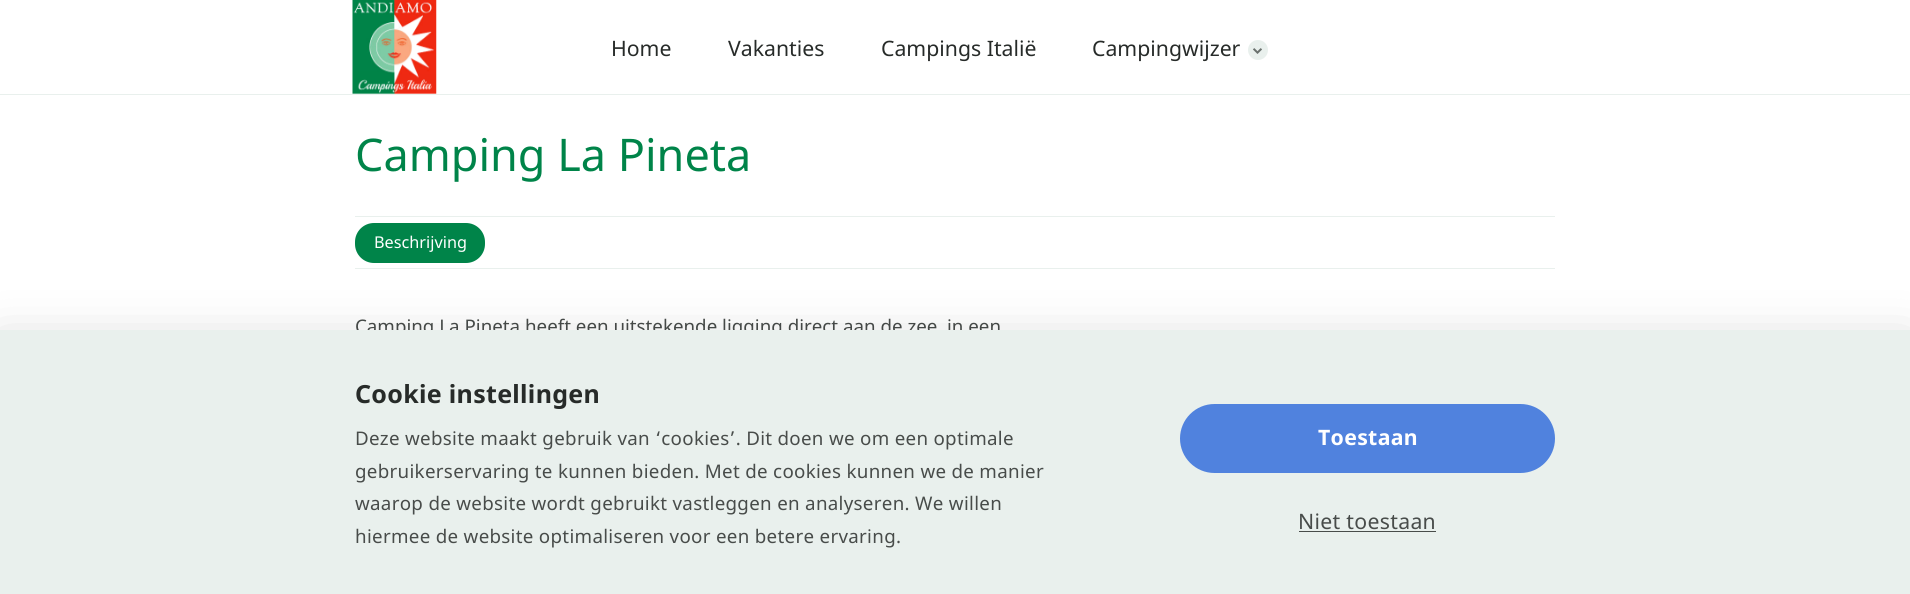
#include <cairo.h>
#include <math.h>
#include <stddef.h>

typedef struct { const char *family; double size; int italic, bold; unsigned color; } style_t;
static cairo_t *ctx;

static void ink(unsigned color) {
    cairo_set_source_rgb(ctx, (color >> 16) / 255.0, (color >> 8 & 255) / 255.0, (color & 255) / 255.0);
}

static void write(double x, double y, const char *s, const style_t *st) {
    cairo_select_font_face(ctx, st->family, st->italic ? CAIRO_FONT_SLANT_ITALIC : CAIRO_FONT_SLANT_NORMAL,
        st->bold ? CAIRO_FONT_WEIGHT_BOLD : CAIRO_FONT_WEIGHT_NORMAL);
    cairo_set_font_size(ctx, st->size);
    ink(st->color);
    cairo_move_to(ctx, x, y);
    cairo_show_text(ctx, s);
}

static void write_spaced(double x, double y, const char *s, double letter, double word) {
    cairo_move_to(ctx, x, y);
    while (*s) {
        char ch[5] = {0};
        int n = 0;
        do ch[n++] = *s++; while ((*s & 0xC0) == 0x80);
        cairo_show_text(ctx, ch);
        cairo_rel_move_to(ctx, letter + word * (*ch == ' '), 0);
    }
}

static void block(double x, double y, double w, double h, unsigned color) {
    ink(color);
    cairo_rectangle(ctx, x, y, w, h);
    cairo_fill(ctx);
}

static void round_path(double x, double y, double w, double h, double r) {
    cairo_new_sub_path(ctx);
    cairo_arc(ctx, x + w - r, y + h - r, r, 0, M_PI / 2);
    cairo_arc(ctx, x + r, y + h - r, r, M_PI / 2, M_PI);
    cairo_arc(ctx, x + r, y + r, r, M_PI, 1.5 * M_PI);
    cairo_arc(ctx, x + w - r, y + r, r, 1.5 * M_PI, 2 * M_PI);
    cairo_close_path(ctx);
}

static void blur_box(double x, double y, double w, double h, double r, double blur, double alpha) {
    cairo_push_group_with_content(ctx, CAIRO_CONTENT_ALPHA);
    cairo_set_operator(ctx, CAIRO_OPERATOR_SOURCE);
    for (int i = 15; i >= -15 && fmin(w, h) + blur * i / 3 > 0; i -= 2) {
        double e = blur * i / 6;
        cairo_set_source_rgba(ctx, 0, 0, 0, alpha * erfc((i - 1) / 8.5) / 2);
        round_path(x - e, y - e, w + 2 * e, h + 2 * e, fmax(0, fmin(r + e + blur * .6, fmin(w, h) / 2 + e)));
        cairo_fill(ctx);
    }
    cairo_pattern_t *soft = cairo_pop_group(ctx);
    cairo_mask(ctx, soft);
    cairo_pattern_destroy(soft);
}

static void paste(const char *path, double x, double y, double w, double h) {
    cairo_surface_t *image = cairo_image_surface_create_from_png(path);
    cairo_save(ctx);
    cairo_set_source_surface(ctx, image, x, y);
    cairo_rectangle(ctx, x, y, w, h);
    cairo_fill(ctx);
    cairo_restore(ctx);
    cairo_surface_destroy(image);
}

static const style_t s1 = {"Noto Sans", 21.25, 0, 0, 0x272b29};
static const style_t s2 = {"Noto Sans", 45, 0, 0, 0x008449};
static const style_t s3 = {"Noto Sans", 16.25, 0, 0, 0xffffff};
static const style_t s4 = {"Noto Sans", 18.75, 0, 0, 0x484c4a};

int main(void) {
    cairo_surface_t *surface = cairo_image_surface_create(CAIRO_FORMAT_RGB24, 1910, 594);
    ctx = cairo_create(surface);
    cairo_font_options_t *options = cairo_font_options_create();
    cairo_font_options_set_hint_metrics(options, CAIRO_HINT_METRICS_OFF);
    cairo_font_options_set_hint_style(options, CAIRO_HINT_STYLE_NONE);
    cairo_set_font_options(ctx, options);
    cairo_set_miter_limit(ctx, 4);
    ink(0xffffff);
    cairo_paint(ctx);
    paste("pic1.png", 352, 0, 85, 94);
    write(611, 56, "Home", &s1);
    write(728, 56, "Vakanties", &s1);
    write(881, 56, "Campings Italië", &s1);
    write(1092, 56, "Campingwijzer", &s1);
    ink(0xe9f0ed);
    cairo_new_path(ctx);
    cairo_arc(ctx, 1258, 50, 10, 0, 2 * M_PI);
    cairo_fill(ctx);
    paste("pic2.png", 1253, 48, 9, 6);
    block(0, 94, 1910, 1, 0xe9f0ed);
    write(355, 171, "Camping La Pineta", &s2);
    block(355, 216, 1200, 1, 0xe9f0ed);
    block(355, 268, 1200, 1, 0xe9f0ed);
    ink(0x008449);
    round_path(355, 223, 130, 40, 19);
    cairo_fill(ctx);
    write(374, 248, "Beschrijving", &s3);
    write(355, 333, "Camping La Pineta heeft een uitstekende ligging direct aan de zee, in een", &s4);
    ink(0x000000);
    blur_box(1, 344, 1908, 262, 0, 25, 0.2);
    block(0, 330, 1910, 264, 0xe9f0ed);
    cairo_select_font_face(ctx, "Noto Sans", CAIRO_FONT_SLANT_NORMAL, CAIRO_FONT_WEIGHT_BOLD);
    cairo_set_font_size(ctx, 25);
    ink(0x272b29);
    write_spaced(355, 403, "Cookie instellingen", 0.3, 0);
    cairo_select_font_face(ctx, "Noto Sans", CAIRO_FONT_SLANT_NORMAL, CAIRO_FONT_WEIGHT_NORMAL);
    cairo_set_font_size(ctx, 18.75);
    ink(0x484c4a);
    write_spaced(355, 445, "Deze website maakt gebruik van ‘cookies’. Dit doen we om een optimale", 0.3, 0);
    write_spaced(355, 478, "gebruikerservaring te kunnen bieden. Met de cookies kunnen we de manier", 0.3, 0);
    write_spaced(355, 510, "waarop de website wordt gebruikt vastleggen en analyseren. We willen", 0.3, 0);
    write_spaced(355, 543, "hiermee de website optimaliseren voor een betere ervaring.", 0.3, 0);
    ink(0x5082de);
    round_path(1180, 404, 375, 69, 34.5);
    cairo_fill(ctx);
    cairo_select_font_face(ctx, "Noto Sans", CAIRO_FONT_SLANT_NORMAL, CAIRO_FONT_WEIGHT_BOLD);
    cairo_set_font_size(ctx, 21.25);
    ink(0xffffff);
    write_spaced(1318, 445, "Toestaan", 0.3, 0);
    cairo_select_font_face(ctx, "Noto Sans", CAIRO_FONT_SLANT_NORMAL, CAIRO_FONT_WEIGHT_NORMAL);
    ink(0x484c4a);
    write_spaced(1298, 529, "Niet toestaan", 0.3, 0);
    block(1299, 531, 137, 1, 0x484c4a);
    cairo_surface_write_to_png(surface, "screenshot.png");
    cairo_font_options_destroy(options);
    cairo_destroy(ctx);
    cairo_surface_destroy(surface);
    return 0;
}
